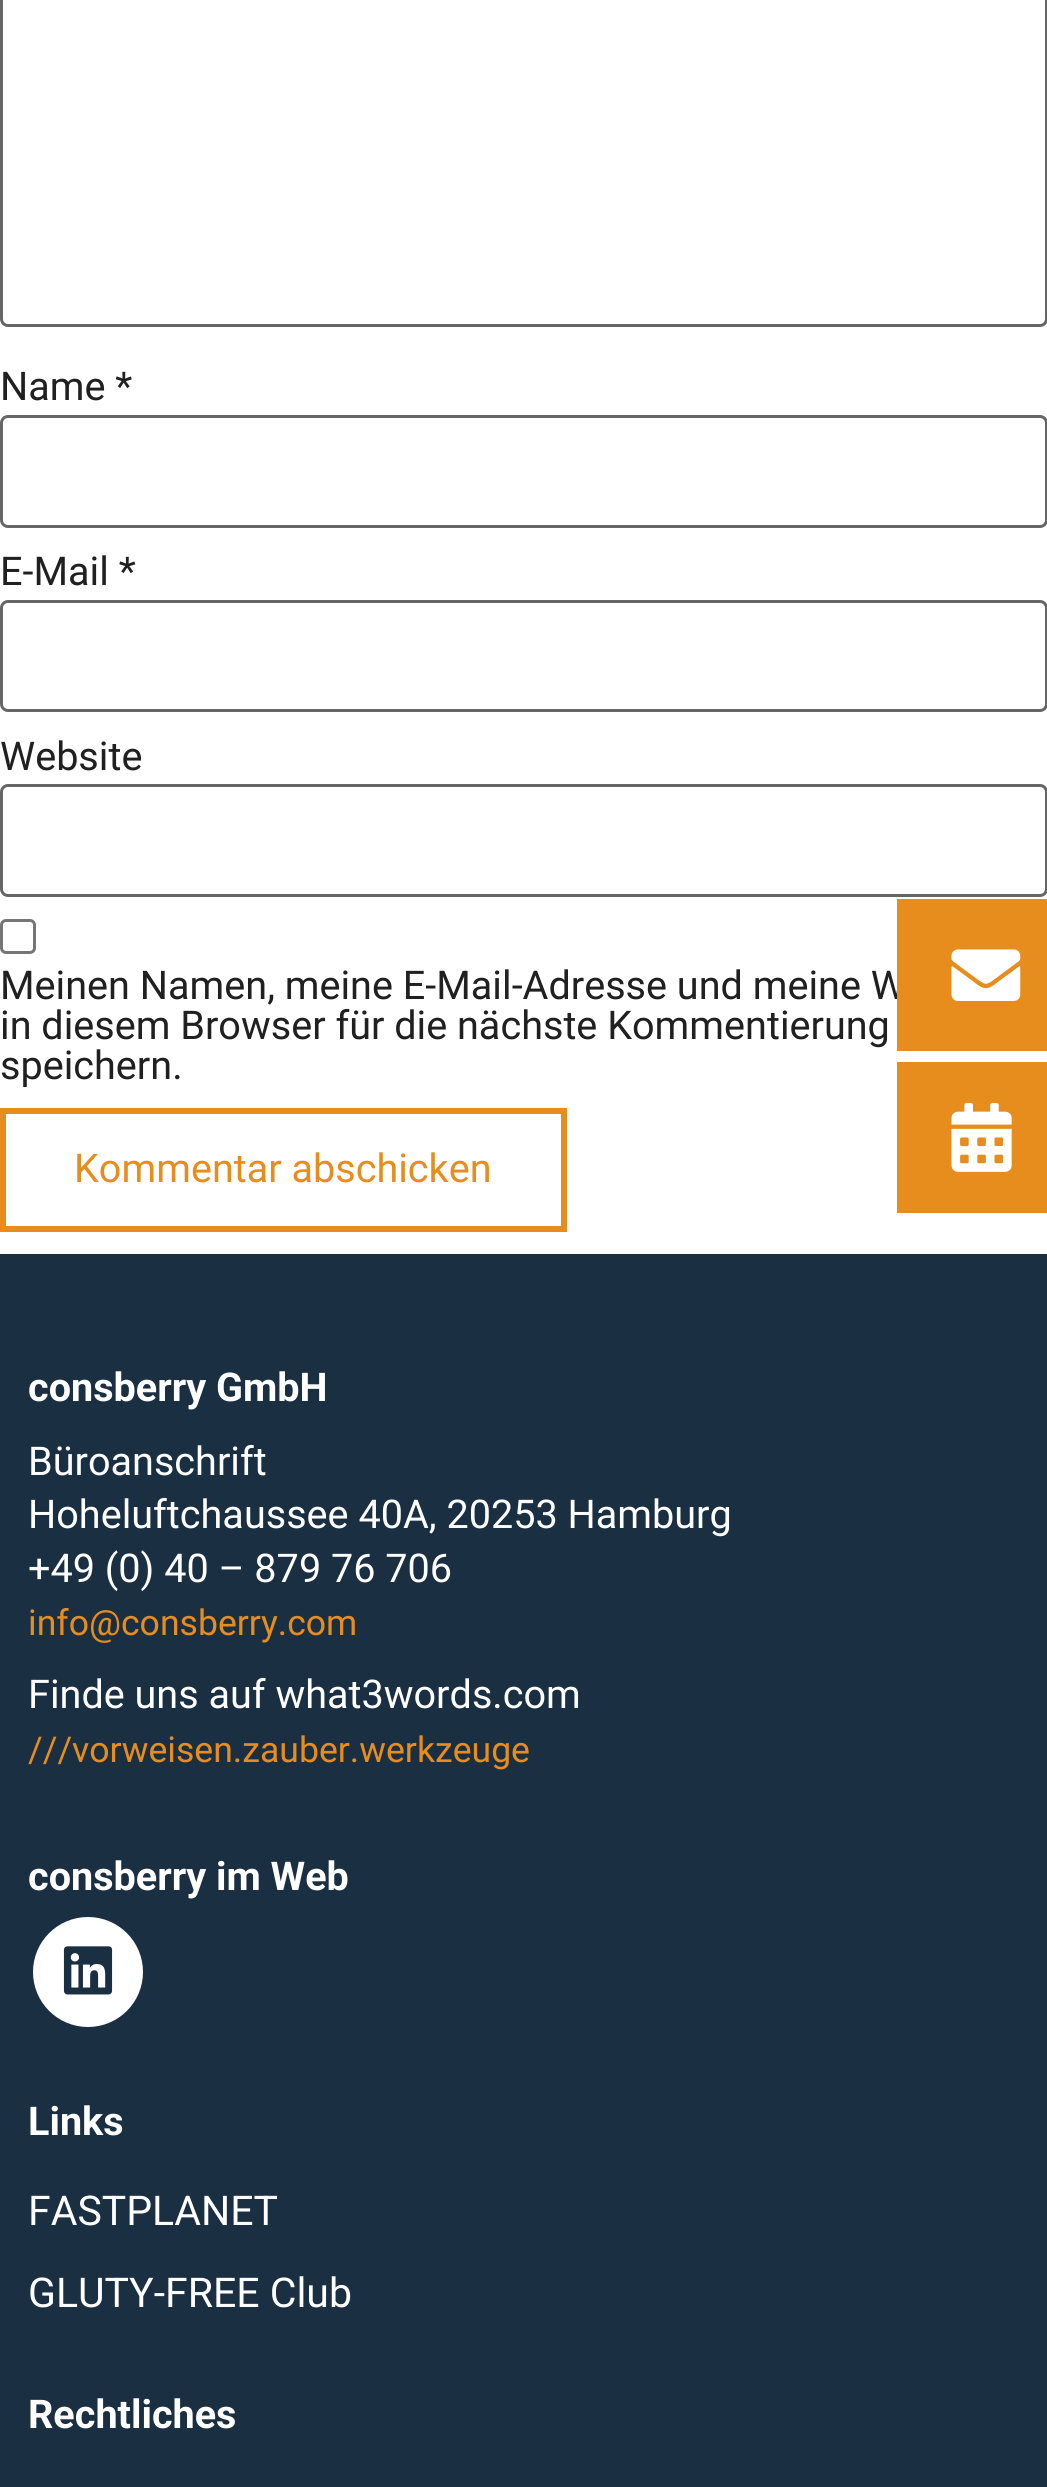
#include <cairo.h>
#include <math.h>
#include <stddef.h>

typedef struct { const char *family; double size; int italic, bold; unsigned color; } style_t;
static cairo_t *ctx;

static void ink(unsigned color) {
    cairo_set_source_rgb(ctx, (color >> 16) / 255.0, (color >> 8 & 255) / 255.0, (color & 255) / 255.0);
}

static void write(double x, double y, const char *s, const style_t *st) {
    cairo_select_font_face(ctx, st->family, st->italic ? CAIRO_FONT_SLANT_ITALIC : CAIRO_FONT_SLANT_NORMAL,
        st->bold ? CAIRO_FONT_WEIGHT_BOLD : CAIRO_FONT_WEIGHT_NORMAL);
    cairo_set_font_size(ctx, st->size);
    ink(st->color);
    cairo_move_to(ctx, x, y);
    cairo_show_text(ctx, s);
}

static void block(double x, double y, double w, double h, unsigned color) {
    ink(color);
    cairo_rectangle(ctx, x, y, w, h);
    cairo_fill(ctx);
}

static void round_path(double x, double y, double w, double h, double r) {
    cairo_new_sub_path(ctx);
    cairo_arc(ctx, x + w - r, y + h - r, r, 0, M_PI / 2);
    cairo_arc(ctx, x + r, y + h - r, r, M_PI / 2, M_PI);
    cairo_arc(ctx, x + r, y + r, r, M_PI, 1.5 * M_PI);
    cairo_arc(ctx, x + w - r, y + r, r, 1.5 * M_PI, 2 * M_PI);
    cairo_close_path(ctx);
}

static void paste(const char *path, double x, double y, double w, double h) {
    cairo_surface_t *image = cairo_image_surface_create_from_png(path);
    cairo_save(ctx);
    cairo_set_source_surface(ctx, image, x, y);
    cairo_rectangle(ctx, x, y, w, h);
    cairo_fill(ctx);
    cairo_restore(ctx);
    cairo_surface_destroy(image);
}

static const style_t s1 = {"Roboto", 39.6, 0, 0, 0x202020};
static const style_t s2 = {"Roboto", 39.6, 0, 0, 0xe78d1d};
static const style_t s3 = {"Roboto", 39.6, 0, 1, 0xffffff};
static const style_t s4 = {"Roboto", 39.6, 0, 0, 0xffffff};
static const style_t s5 = {"Roboto", 35.6, 0, 0, 0xe78d1d};
static const style_t s6 = {"Roboto", 41, 0, 0, 0xffffff};

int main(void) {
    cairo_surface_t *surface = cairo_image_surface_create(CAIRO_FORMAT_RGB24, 1047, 2487);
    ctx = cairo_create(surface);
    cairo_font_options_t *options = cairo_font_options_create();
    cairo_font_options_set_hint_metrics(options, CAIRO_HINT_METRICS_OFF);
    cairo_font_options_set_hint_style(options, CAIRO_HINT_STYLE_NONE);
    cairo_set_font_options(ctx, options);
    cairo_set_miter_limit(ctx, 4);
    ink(0xffffff);
    cairo_paint(ctx);
    round_path(1.5, -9.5, 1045, 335, 6.5);
    ink(0x666666);
    cairo_set_line_width(ctx, 3);
    cairo_stroke(ctx);
    write(0, 400, "Name *", &s1);
    round_path(1.5, 416.5, 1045, 110, 6.5);
    ink(0x666666);
    cairo_stroke(ctx);
    write(0, 585, "E-Mail *", &s1);
    round_path(1.5, 601.5, 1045, 109, 6.5);
    ink(0x666666);
    cairo_stroke(ctx);
    write(0, 770, "Website", &s1);
    round_path(1.5, 785.5, 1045, 110, 6.5);
    ink(0x666666);
    cairo_stroke(ctx);
    round_path(1.5, 920.5, 33, 32, 4.5);
    ink(0x767676);
    cairo_stroke(ctx);
    write(0, 999, "Meinen Namen, meine E-Mail-Adresse und meine W", &s1);
    write(0, 1039, "in diesem Browser für die nächste Kommentierung", &s1);
    write(0, 1079, "speichern.", &s1);
    cairo_rectangle(ctx, 3, 1111, 561, 118);
    ink(0xe78d1d);
    cairo_set_line_width(ctx, 6);
    cairo_stroke(ctx);
    write(74, 1182, "Kommentar abschicken", &s2);
    block(897, 899, 150, 152, 0xe78d1d);
    paste("pic1.png", 951, 949, 70, 52);
    block(897, 1062, 150, 151, 0xe78d1d);
    paste("pic2.png", 951, 1103, 61, 69);
    block(0, 1254, 1047, 1233, 0x1a2f41);
    write(28, 1401, "consberry GmbH", &s3);
    write(28, 1475, "Büroanschrift", &s4);
    write(28, 1528, "Hoheluftchaussee 40A, 20253 Hamburg", &s4);
    write(28, 1582, "+49 (0) 40 – 879 76 706", &s4);
    write(28, 1635, "info@consberry.com", &s5);
    write(28, 1708, "Finde uns auf what3words.com", &s4);
    write(28, 1762, "///vorweisen.zauber.werkzeuge", &s5);
    write(28, 1890, "consberry im Web", &s3);
    cairo_new_path(ctx);
    cairo_arc(ctx, 88, 1972, 55, 0, 2 * M_PI);
    cairo_fill(ctx);
    paste("pic3.png", 63, 1946, 50, 49);
    write(28, 2135, "Links", &s3);
    write(28, 2225, "FASTPLANET", &s6);
    write(28, 2307, "GLUTY-FREE Club", &s6);
    write(28, 2428, "Rechtliches", &s3);
    cairo_surface_write_to_png(surface, "screenshot.png");
    cairo_font_options_destroy(options);
    cairo_destroy(ctx);
    cairo_surface_destroy(surface);
    return 0;
}
